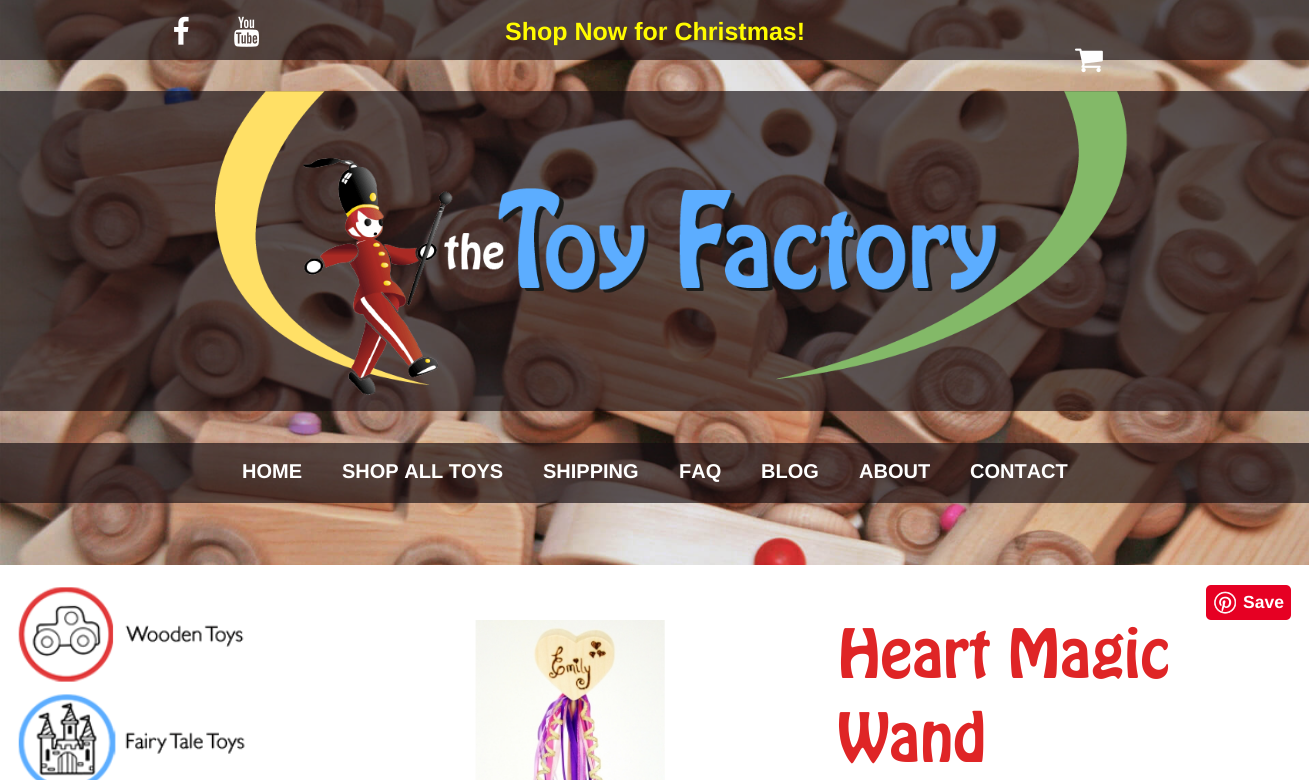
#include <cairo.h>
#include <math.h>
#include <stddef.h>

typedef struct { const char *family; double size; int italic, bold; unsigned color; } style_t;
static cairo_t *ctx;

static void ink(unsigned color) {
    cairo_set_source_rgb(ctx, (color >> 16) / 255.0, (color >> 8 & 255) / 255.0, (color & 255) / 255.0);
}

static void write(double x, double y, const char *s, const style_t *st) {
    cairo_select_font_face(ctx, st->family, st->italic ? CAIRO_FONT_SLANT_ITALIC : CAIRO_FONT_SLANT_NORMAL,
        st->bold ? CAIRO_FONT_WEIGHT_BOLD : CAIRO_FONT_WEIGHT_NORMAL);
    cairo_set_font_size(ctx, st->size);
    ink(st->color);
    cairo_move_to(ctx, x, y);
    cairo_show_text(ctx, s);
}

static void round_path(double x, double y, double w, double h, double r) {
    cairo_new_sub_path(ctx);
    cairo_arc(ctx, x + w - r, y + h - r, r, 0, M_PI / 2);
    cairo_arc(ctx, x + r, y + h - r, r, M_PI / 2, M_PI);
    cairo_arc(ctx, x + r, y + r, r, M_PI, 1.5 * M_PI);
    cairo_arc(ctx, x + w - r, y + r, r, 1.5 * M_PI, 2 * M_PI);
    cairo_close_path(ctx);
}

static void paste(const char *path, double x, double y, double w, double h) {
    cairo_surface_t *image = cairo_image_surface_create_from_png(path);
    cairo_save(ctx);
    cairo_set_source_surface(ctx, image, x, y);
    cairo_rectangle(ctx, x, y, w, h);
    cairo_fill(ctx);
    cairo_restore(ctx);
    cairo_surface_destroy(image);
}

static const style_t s1 = {"Liberation Sans", 25, 0, 1, 0xfffb00};
static const style_t s2 = {"Liberation Sans", 20, 0, 1, 0xffffff};
static const style_t s3 = {"Liberation Sans", 17.5, 0, 1, 0xffffff};
static const style_t s4 = {"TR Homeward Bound", 60, 0, 0, 0xdf2526};

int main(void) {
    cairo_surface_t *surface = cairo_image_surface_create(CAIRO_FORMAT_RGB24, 1309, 780);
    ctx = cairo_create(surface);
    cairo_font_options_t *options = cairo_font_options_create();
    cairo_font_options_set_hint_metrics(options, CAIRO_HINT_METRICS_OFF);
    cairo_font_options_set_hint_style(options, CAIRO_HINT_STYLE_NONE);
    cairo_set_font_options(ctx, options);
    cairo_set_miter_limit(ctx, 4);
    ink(0xffffff);
    cairo_paint(ctx);
    paste("pic1.png", 0, 0, 1309, 565);
    cairo_set_source_rgba(ctx, 0.078, 0.047, 0.063, 0.65);
    cairo_rectangle(ctx, 0, 0, 1309, 60);
    cairo_fill(ctx);
    paste("pic2.png", 174, 16, 15, 29);
    paste("pic3.png", 234, 16, 25, 31);
    write(505, 40, "Shop Now for Christmas!", &s1);
    paste("pic4.png", 1075, 48, 28, 25);
    cairo_set_source_rgba(ctx, 0.078, 0.047, 0.063, 0.65);
    cairo_rectangle(ctx, 0, 91, 1309, 320);
    cairo_fill(ctx);
    paste("pic5.png", 215, 91, 913, 304);
    cairo_rectangle(ctx, 0, 443, 1309, 60);
    cairo_fill(ctx);
    write(242, 478, "HOME", &s2);
    write(342, 478, "SHOP ALL TOYS", &s2);
    write(543, 478, "SHIPPING", &s2);
    write(679, 478, "FAQ", &s2);
    write(761, 478, "BLOG", &s2);
    write(859, 478, "ABOUT", &s2);
    write(970, 478, "CONTACT", &s2);
    paste("pic6.png", 18, 587, 227, 193);
    ink(0xe60023);
    round_path(1206, 585, 85, 35, 5);
    cairo_fill(ctx);
    paste("pic7.png", 1214, 591, 22, 23);
    write(1243, 608, "Save", &s3);
    paste("pic8.png", 475, 620, 190, 160);
    write(838, 678, "Heart Magic", &s4);
    write(838, 762, "Wand", &s4);
    cairo_surface_write_to_png(surface, "screenshot.png");
    cairo_font_options_destroy(options);
    cairo_destroy(ctx);
    cairo_surface_destroy(surface);
    return 0;
}
